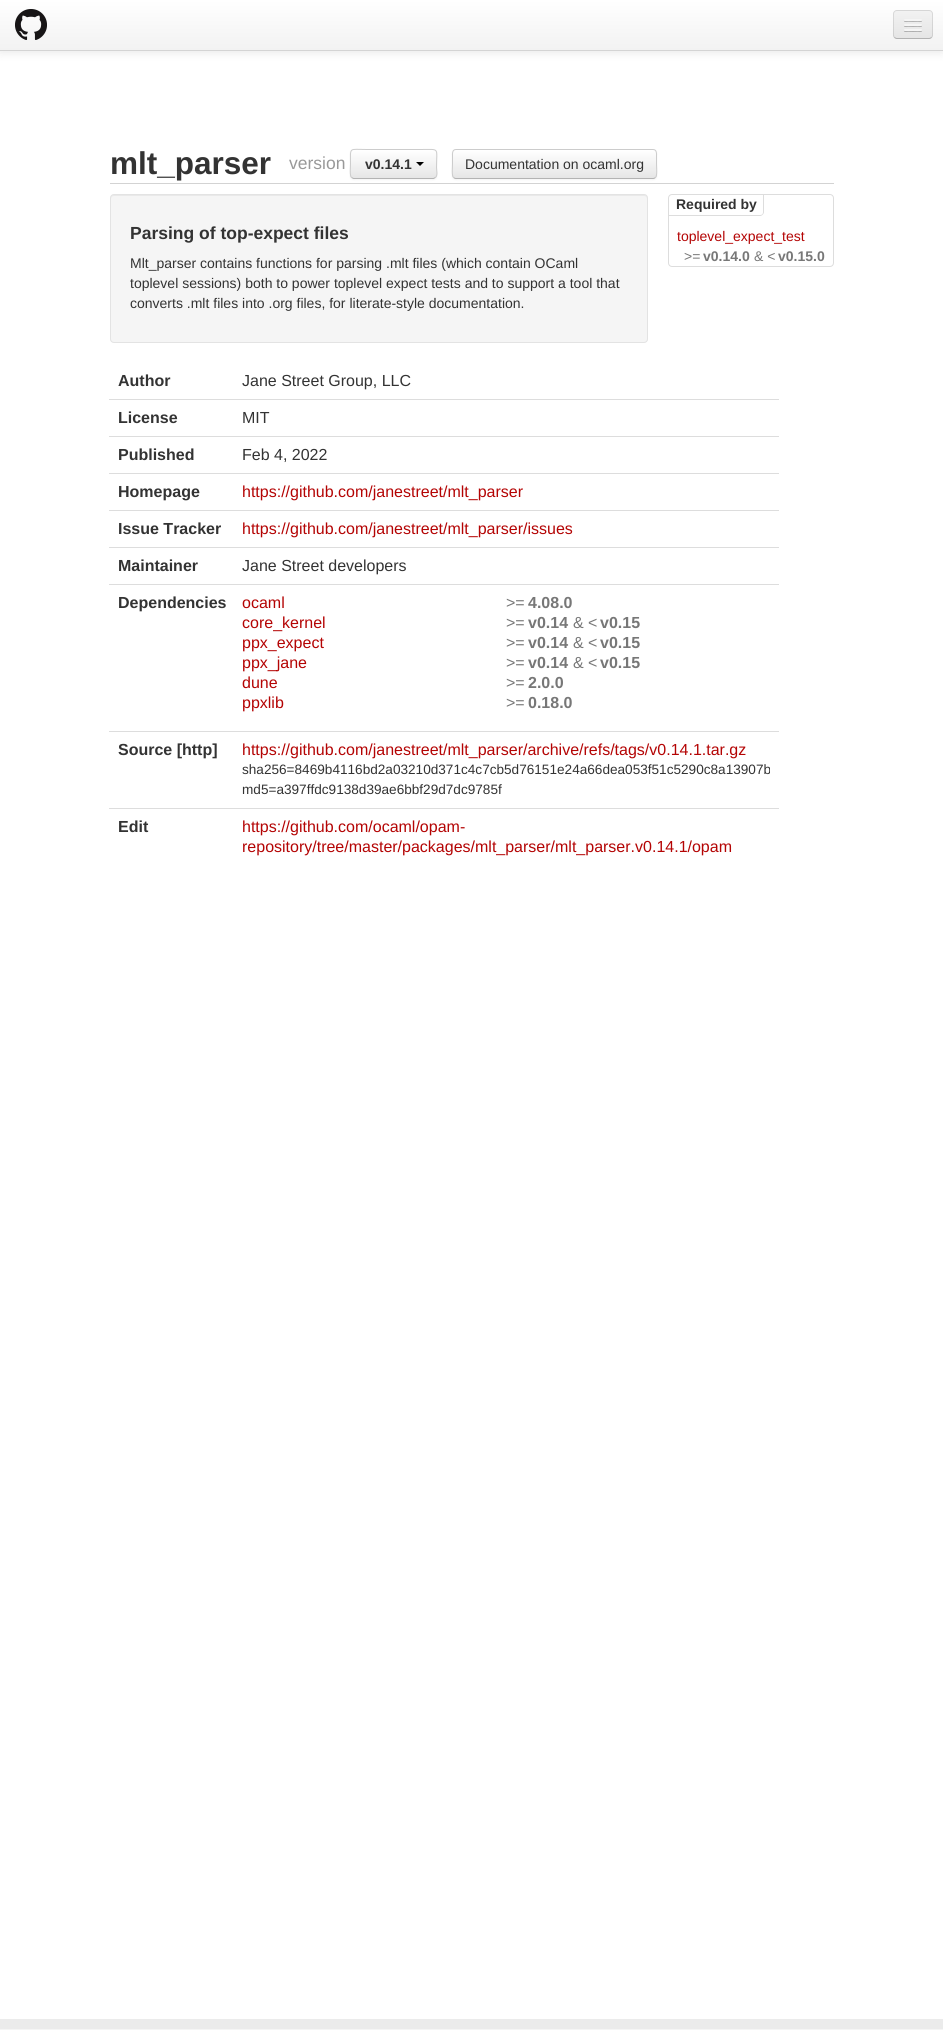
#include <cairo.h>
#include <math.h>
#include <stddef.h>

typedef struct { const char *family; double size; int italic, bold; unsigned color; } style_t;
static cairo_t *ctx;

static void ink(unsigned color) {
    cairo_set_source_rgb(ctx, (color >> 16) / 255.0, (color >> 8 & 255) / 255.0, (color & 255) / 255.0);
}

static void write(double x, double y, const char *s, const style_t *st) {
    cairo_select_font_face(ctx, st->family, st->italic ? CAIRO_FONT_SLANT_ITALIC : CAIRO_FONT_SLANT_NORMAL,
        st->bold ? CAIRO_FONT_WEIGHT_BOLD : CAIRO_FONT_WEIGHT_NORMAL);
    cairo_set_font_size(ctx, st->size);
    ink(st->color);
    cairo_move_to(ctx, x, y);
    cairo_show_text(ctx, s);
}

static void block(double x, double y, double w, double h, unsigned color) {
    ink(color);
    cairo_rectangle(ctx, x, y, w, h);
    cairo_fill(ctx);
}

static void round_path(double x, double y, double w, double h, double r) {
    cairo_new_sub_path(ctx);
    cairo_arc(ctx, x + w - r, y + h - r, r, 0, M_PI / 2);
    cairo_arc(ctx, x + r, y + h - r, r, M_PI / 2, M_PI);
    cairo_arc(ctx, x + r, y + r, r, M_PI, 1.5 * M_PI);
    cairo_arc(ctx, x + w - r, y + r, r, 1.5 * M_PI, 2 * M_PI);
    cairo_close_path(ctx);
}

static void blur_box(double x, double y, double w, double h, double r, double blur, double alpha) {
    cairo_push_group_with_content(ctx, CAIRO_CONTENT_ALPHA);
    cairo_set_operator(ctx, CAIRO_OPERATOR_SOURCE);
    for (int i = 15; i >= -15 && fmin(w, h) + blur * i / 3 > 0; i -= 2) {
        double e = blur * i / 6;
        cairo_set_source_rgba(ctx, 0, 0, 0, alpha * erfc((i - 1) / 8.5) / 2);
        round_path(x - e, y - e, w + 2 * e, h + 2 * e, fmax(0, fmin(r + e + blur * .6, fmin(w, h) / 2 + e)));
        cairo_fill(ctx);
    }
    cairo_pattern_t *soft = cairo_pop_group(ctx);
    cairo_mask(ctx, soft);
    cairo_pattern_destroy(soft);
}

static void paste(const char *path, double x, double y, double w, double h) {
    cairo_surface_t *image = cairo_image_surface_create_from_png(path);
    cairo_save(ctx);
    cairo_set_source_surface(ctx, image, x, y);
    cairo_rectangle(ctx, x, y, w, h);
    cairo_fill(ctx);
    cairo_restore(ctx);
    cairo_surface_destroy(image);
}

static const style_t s1 = {"Liberation Sans", 31.5, 0, 1, 0x333333};
static const style_t s2 = {"Liberation Sans", 17.5, 0, 0, 0x999999};
static const style_t s3 = {"Liberation Sans", 14, 0, 1, 0x333333};
static const style_t s4 = {"Liberation Sans", 14, 0, 0, 0x333333};
static const style_t s5 = {"Liberation Sans", 14, 0, 0, 0xb40404};
static const style_t s6 = {"Liberation Sans", 14, 0, 0, 0x777777};
static const style_t s7 = {"Liberation Sans", 14, 0, 1, 0x777777};
static const style_t s8 = {"Liberation Sans", 17.5, 0, 1, 0x333333};
static const style_t s9 = {"Liberation Sans", 16, 0, 1, 0x333333};
static const style_t s10 = {"Liberation Sans", 16, 0, 0, 0x333333};
static const style_t s11 = {"Liberation Sans", 16, 0, 0, 0xb40404};
static const style_t s12 = {"Liberation Sans", 16, 0, 0, 0x777777};
static const style_t s13 = {"Liberation Sans", 16, 0, 1, 0x777777};
static const style_t s14 = {"Liberation Sans", 13.6, 0, 0, 0x333333};

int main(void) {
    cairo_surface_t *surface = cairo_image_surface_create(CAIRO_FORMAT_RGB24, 943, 2030);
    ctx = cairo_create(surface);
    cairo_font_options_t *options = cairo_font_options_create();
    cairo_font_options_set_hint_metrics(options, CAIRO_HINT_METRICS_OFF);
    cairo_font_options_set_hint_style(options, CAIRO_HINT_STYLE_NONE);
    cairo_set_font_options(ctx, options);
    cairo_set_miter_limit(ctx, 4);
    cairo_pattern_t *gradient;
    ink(0xffffff);
    cairo_paint(ctx);
    ink(0x000000);
    blur_box(0, 1, 943, 51, 0, 5, 0.1);
    gradient = cairo_pattern_create_linear(472, 0, 472, 50);
    cairo_pattern_add_color_stop_rgba(gradient, 0, 1, 1, 1, 1);
    cairo_pattern_add_color_stop_rgba(gradient, 1, 0.949, 0.949, 0.949, 1);
    cairo_set_source(ctx, gradient);
    cairo_pattern_destroy(gradient);
    cairo_rectangle(ctx, 0, 0, 943, 50);
    cairo_fill(ctx);
    block(0, 50, 943, 1, 0xd4d4d4);
    paste("pic1.png", 15, 9, 32, 31);
    ink(0xededed);
    round_path(893, 10, 40, 29, 4);
    cairo_fill(ctx);
    cairo_save(ctx);
    round_path(893, 10, 40, 29, 4);
    cairo_clip(ctx);
    gradient = cairo_pattern_create_linear(913, 11, 913, 38);
    cairo_pattern_add_color_stop_rgba(gradient, 0, 0.949, 0.949, 0.949, 1);
    cairo_pattern_add_color_stop_rgba(gradient, 1, 0.898, 0.898, 0.898, 1);
    cairo_set_source(ctx, gradient);
    cairo_pattern_destroy(gradient);
    cairo_rectangle(ctx, 893, 11, 40, 27);
    cairo_fill(ctx);
    cairo_restore(ctx);
    cairo_new_path(ctx);
    cairo_move_to(ctx, 931.5, 37.5);
    cairo_curve_to(ctx, 931, 38, 930, 38.5, 929, 38.5);
    cairo_line_to(ctx, 897, 38.5);
    cairo_curve_to(ctx, 896, 38.5, 895, 38, 894.5, 37.5);
    cairo_set_source_rgba(ctx, 0, 0, 0, 0.25);
    cairo_set_line_width(ctx, 1);
    cairo_stroke(ctx);
    cairo_new_path(ctx);
    cairo_move_to(ctx, 894.5, 37.5);
    cairo_curve_to(ctx, 894, 37, 893.5, 36, 893.5, 35);
    cairo_line_to(ctx, 893.5, 14);
    cairo_curve_to(ctx, 893.5, 13, 894, 12, 894.5, 11.5);
    cairo_curve_to(ctx, 895, 11, 896, 10.5, 897, 10.5);
    cairo_line_to(ctx, 929, 10.5);
    cairo_curve_to(ctx, 930, 10.5, 931, 11, 931.5, 11.5);
    cairo_curve_to(ctx, 932, 12, 932.5, 13, 932.5, 14);
    cairo_line_to(ctx, 932.5, 35);
    cairo_curve_to(ctx, 932.5, 36, 932, 37, 931.5, 37.5);
    cairo_set_source_rgba(ctx, 0, 0, 0, 0.1);
    cairo_stroke(ctx);
    ink(0xb2b2b2);
    cairo_new_path(ctx);
    cairo_move_to(ctx, 904, 20.5);
    cairo_curve_to(ctx, 903, 22.5, 907.5, 22, 907.5, 22);
    cairo_line_to(ctx, 918.5, 22);
    cairo_curve_to(ctx, 918.5, 22, 923, 22.5, 922, 20.5);
    cairo_curve_to(ctx, 921, 21.5, 914.5, 21, 913, 21);
    cairo_curve_to(ctx, 911.5, 21, 905, 21.5, 904, 20.5);
    cairo_close_path(ctx);
    cairo_fill(ctx);
    ink(0xf5f5f5);
    round_path(904, 19, 18, 2, 1);
    cairo_fill(ctx);
    ink(0xb0b0b0);
    cairo_new_path(ctx);
    cairo_move_to(ctx, 904, 25.5);
    cairo_curve_to(ctx, 903, 27.5, 907.5, 27, 907.5, 27);
    cairo_line_to(ctx, 918.5, 27);
    cairo_curve_to(ctx, 918.5, 27, 923, 27.5, 922, 25.5);
    cairo_curve_to(ctx, 921, 26.5, 914.5, 26, 913, 26);
    cairo_curve_to(ctx, 911.5, 26, 905, 26.5, 904, 25.5);
    cairo_close_path(ctx);
    cairo_fill(ctx);
    ink(0xf5f5f5);
    round_path(904, 24, 18, 2, 1);
    cairo_fill(ctx);
    ink(0xaeaeae);
    cairo_new_path(ctx);
    cairo_move_to(ctx, 904, 30.5);
    cairo_curve_to(ctx, 903, 32.5, 907.5, 32, 907.5, 32);
    cairo_line_to(ctx, 918.5, 32);
    cairo_curve_to(ctx, 918.5, 32, 923, 32.5, 922, 30.5);
    cairo_curve_to(ctx, 921, 31.5, 914.5, 31, 913, 31);
    cairo_curve_to(ctx, 911.5, 31, 905, 31.5, 904, 30.5);
    cairo_close_path(ctx);
    cairo_fill(ctx);
    ink(0xf5f5f5);
    round_path(904, 29, 18, 2, 1);
    cairo_fill(ctx);
    block(110, 183, 724, 1, 0xd3d3d3);
    write(110, 174, "mlt_parser", &s1);
    write(289, 169, "version", &s2);
    ink(0x000000);
    blur_box(350, 150, 87, 30, 4, 1, 0.05);
    cairo_save(ctx);
    round_path(350, 149, 87, 30, 4);
    cairo_clip(ctx);
    gradient = cairo_pattern_create_linear(394, 150, 394, 178);
    cairo_pattern_add_color_stop_rgba(gradient, 0, 1, 1, 1, 1);
    cairo_pattern_add_color_stop_rgba(gradient, 1, 0.902, 0.902, 0.902, 1);
    cairo_set_source(ctx, gradient);
    cairo_pattern_destroy(gradient);
    cairo_rectangle(ctx, 350, 150, 87, 28);
    cairo_fill(ctx);
    cairo_restore(ctx);
    cairo_new_path(ctx);
    cairo_move_to(ctx, 435.5, 177.5);
    cairo_line_to(ctx, 433.5, 178.5);
    cairo_line_to(ctx, 353.5, 178.5);
    cairo_line_to(ctx, 351.5, 177.5);
    ink(0xb3b3b3);
    cairo_stroke(ctx);
    cairo_new_path(ctx);
    cairo_move_to(ctx, 351.5, 177.5);
    cairo_curve_to(ctx, 349.5, 175.5, 350.5, 167, 350.5, 164);
    cairo_curve_to(ctx, 350.5, 146.5, 348.5, 149.5, 367, 149.5);
    cairo_line_to(ctx, 420, 149.5);
    cairo_curve_to(ctx, 440.5, 149.5, 436.5, 147, 436.5, 167.5);
    cairo_curve_to(ctx, 436.5, 170.5, 438, 175, 435.5, 177.5);
    ink(0xcccccc);
    cairo_stroke(ctx);
    write(365, 169, "v0.14.1", &s3);
    ink(0x000000);
    cairo_new_path(ctx);
    cairo_move_to(ctx, 416, 162);
    cairo_line_to(ctx, 424, 162);
    cairo_line_to(ctx, 420, 166);
    cairo_close_path(ctx);
    cairo_fill(ctx);
    ink(0x000000);
    blur_box(452, 150, 205, 30, 4, 1, 0.05);
    cairo_save(ctx);
    round_path(452, 149, 205, 30, 4);
    cairo_clip(ctx);
    gradient = cairo_pattern_create_linear(555, 150, 555, 178);
    cairo_pattern_add_color_stop_rgba(gradient, 0, 1, 1, 1, 1);
    cairo_pattern_add_color_stop_rgba(gradient, 1, 0.902, 0.902, 0.902, 1);
    cairo_set_source(ctx, gradient);
    cairo_pattern_destroy(gradient);
    cairo_rectangle(ctx, 452, 150, 205, 28);
    cairo_fill(ctx);
    cairo_restore(ctx);
    cairo_new_path(ctx);
    cairo_move_to(ctx, 655.5, 177.5);
    cairo_curve_to(ctx, 655, 178, 654, 178.5, 653, 178.5);
    cairo_line_to(ctx, 456, 178.5);
    cairo_curve_to(ctx, 455, 178.5, 454, 178, 453.5, 177.5);
    ink(0xb3b3b3);
    cairo_stroke(ctx);
    cairo_new_path(ctx);
    cairo_move_to(ctx, 453.5, 177.5);
    cairo_curve_to(ctx, 451.5, 175.5, 452.5, 167, 452.5, 164);
    cairo_line_to(ctx, 452.5, 156.5);
    cairo_curve_to(ctx, 452.5, 154, 452, 149.5, 456, 149.5);
    cairo_line_to(ctx, 653, 149.5);
    cairo_curve_to(ctx, 657, 149.5, 656.5, 154, 656.5, 156.5);
    cairo_line_to(ctx, 656.5, 164);
    cairo_curve_to(ctx, 656.5, 167, 657.5, 175.5, 655.5, 177.5);
    ink(0xcccccc);
    cairo_stroke(ctx);
    write(465, 169, "Documentation on ocaml.org", &s4);
    round_path(668.5, 194.5, 165, 72, 3.5);
    ink(0xdddddd);
    cairo_stroke(ctx);
    cairo_new_path(ctx);
    cairo_move_to(ctx, 764, 195);
    cairo_line_to(ctx, 764, 212);
    cairo_curve_to(ctx, 764, 214, 762, 216, 760, 216);
    cairo_line_to(ctx, 669, 216);
    cairo_line_to(ctx, 669, 215);
    cairo_line_to(ctx, 760, 215);
    cairo_curve_to(ctx, 762, 215, 763, 214, 763, 212);
    cairo_line_to(ctx, 763, 195);
    cairo_close_path(ctx);
    cairo_fill(ctx);
    write(676, 209, "Required by", &s3);
    write(677, 241, "toplevel_expect_test", &s5);
    write(684, 261, ">=", &s6);
    write(703, 261, "v0.14.0", &s7);
    write(754, 261, "& <", &s6);
    write(778, 261, "v0.15.0", &s7);
    ink(0xf5f5f5);
    round_path(110, 194, 538, 149, 4);
    cairo_fill(ctx);
    ink(0xe9e9e9);
    cairo_new_path(ctx);
    cairo_move_to(ctx, 114, 196);
    cairo_line_to(ctx, 644, 196);
    cairo_curve_to(ctx, 646, 196, 647, 197, 647, 199);
    cairo_line_to(ctx, 647, 198);
    cairo_curve_to(ctx, 647, 196, 646, 195, 644, 195);
    cairo_line_to(ctx, 114, 195);
    cairo_curve_to(ctx, 112, 195, 111, 196, 111, 198);
    cairo_line_to(ctx, 111, 199);
    cairo_curve_to(ctx, 111, 197, 112, 196, 114, 196);
    cairo_close_path(ctx);
    cairo_fill(ctx);
    round_path(110.5, 194.5, 537, 148, 3.5);
    ink(0xe3e3e3);
    cairo_stroke(ctx);
    write(130, 239, "Parsing of top-expect files", &s8);
    write(130, 268, "Mlt_parser contains functions for parsing .mlt files (which contain OCaml", &s4);
    write(130, 288, "toplevel sessions) both to power toplevel expect tests and to support a tool that", &s4);
    write(130, 308, "converts .mlt files into .org files, for literate-style documentation.", &s4);
    write(118, 386, "Author", &s9);
    write(242, 386, "Jane Street Group, LLC", &s10);
    write(118, 423, "License", &s9);
    block(109, 399, 670, 1, 0xdddddd);
    write(242, 423, "MIT", &s10);
    write(118, 460, "Published", &s9);
    block(109, 436, 670, 1, 0xdddddd);
    write(242, 460, "Feb 4, 2022", &s10);
    write(118, 497, "Homepage", &s9);
    block(109, 473, 670, 1, 0xdddddd);
    write(242, 497, "https://github.com/janestreet/mlt_parser", &s11);
    write(118, 534, "Issue Tracker", &s9);
    block(109, 510, 670, 1, 0xdddddd);
    write(242, 534, "https://github.com/janestreet/mlt_parser/issues", &s11);
    write(118, 571, "Maintainer", &s9);
    block(109, 547, 670, 1, 0xdddddd);
    write(242, 571, "Jane Street developers", &s10);
    write(118, 608, "Dependencies", &s9);
    block(109, 584, 670, 1, 0xdddddd);
    write(242, 608, "ocaml", &s11);
    write(506, 608, ">=", &s12);
    write(528, 608, "4.08.0", &s13);
    write(242, 628, "core_kernel", &s11);
    write(506, 628, ">=", &s12);
    write(528, 628, "v0.14", &s13);
    write(573, 628, "& <", &s12);
    write(600, 628, "v0.15", &s13);
    write(242, 648, "ppx_expect", &s11);
    write(506, 648, ">=", &s12);
    write(528, 648, "v0.14", &s13);
    write(573, 648, "& <", &s12);
    write(600, 648, "v0.15", &s13);
    write(242, 668, "ppx_jane", &s11);
    write(506, 668, ">=", &s12);
    write(528, 668, "v0.14", &s13);
    write(573, 668, "& <", &s12);
    write(600, 668, "v0.15", &s13);
    write(242, 688, "dune", &s11);
    write(506, 688, ">=", &s12);
    write(528, 688, "2.0.0", &s13);
    write(242, 708, "ppxlib", &s11);
    write(506, 708, ">=", &s12);
    write(528, 708, "0.18.0", &s13);
    write(118, 755, "Source [http]", &s9);
    block(109, 731, 670, 1, 0xdddddd);
    write(242, 755, "https://github.com/janestreet/mlt_parser/archive/refs/tags/v0.14.1.tar.gz", &s11);
    write(242, 774, "sha256=8469b4116bd2a03210d371c4c7cb5d76151e24a66dea053f51c5290c8a13907b", &s14);
    write(242, 794, "md5=a397ffdc9138d39ae6bbf29d7dc9785f", &s14);
    write(118, 832, "Edit", &s9);
    block(109, 808, 670, 1, 0xdddddd);
    write(242, 832, "https://github.com/ocaml/opam-", &s11);
    write(242, 852, "repository/tree/master/packages/mlt_parser/mlt_parser.v0.14.1/opam", &s11);
    block(0, 2029, 943, 1, 0xf5f5f5);
    block(0, 2019, 943, 10, 0xebebeb);
    cairo_surface_write_to_png(surface, "screenshot.png");
    cairo_font_options_destroy(options);
    cairo_destroy(ctx);
    cairo_surface_destroy(surface);
    return 0;
}
